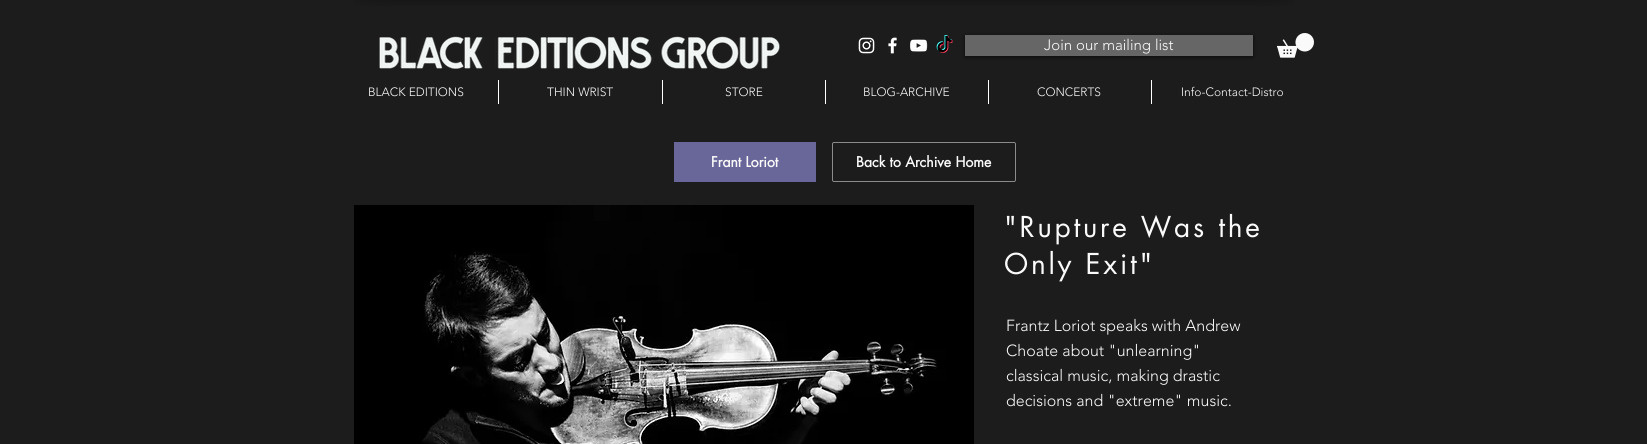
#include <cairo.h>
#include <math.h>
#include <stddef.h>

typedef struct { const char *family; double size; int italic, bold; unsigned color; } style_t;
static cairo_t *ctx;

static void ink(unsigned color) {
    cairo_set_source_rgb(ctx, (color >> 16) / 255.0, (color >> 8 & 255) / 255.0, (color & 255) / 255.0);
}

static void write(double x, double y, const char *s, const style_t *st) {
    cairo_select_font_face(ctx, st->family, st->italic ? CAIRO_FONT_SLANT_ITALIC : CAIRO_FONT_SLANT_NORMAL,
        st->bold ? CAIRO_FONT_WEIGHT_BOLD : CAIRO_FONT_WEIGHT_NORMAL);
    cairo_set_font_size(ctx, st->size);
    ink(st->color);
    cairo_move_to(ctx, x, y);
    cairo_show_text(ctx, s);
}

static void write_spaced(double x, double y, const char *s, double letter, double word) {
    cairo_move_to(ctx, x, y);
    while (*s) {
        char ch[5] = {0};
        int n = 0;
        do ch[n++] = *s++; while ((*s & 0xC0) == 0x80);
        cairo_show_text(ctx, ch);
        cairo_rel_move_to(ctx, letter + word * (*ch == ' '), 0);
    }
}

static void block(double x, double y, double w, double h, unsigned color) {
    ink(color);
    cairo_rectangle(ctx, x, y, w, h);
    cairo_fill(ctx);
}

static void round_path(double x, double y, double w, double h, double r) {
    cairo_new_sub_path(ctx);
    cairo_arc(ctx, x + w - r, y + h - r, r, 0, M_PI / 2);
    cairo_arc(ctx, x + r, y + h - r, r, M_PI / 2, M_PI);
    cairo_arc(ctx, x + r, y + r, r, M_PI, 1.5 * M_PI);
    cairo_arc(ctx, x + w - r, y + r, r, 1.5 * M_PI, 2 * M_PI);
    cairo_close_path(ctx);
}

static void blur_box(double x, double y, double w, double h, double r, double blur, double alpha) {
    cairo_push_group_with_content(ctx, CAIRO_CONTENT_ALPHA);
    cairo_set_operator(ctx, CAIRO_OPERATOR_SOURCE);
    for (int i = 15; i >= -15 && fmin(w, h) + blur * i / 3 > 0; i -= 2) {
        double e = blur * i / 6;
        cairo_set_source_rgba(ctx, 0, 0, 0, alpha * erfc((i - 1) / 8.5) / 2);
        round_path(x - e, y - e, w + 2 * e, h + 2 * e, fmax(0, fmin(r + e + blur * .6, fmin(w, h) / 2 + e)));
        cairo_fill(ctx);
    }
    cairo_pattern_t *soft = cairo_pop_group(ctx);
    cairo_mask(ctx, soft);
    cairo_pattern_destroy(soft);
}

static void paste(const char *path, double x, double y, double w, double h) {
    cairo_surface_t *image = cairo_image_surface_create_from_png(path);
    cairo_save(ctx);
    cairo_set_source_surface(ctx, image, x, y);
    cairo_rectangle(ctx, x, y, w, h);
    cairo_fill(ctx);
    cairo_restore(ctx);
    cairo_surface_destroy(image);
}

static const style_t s1 = {"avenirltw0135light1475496 Light", 15, 0, 0, 0xfafafa};
static const style_t s2 = {"avenirltw0135light1475496 Light", 12, 0, 0, 0xfafafa};
static const style_t s3 = {"futura", 14, 0, 1, 0xfafafa};
static const style_t s4 = {"avenirltw0135light1475496 Light", 16, 0, 0, 0xfafafa};

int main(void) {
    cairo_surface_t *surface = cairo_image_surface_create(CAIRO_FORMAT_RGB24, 1647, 444);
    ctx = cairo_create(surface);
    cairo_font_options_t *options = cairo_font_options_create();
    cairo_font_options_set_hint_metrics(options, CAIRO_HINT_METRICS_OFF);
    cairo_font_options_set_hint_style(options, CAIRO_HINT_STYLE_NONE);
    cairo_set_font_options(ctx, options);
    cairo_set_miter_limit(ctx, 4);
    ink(0x1c1c1c);
    cairo_paint(ctx);
    paste("pic1.png", 353, 0, 81, 6);
    paste("pic2.png", 434, 0, 780, 6);
    paste("pic3.png", 1214, 0, 81, 6);
    paste("pic4.png", 379, 36, 401, 33);
    paste("pic5.png", 858, 37, 17, 17);
    paste("pic6.png", 888, 37, 9, 17);
    paste("pic7.png", 910, 39, 18, 13);
    paste("pic8.png", 936, 35, 17, 18);
    ink(0x000000);
    blur_box(965, 36, 288, 21, 0, 2, 0.6);
    block(965, 35, 288, 21, 0x666666);
    write(1044, 50, "Join our mailing list", &s1);
    paste("pic9.png", 1277, 33, 37, 25);
    write(368, 96, "BLACK EDITIONS", &s2);
    block(498, 80, 1, 24, 0xffffff);
    write(547, 96, "THIN WRIST", &s2);
    block(662, 80, 1, 24, 0xffffff);
    write(725, 96, "STORE", &s2);
    block(825, 80, 1, 24, 0xffffff);
    write(863, 96, "BLOG-ARCHIVE", &s2);
    block(988, 80, 1, 24, 0xffffff);
    write(1037, 96, "CONCERTS", &s2);
    block(1151, 80, 1, 24, 0xffffff);
    write(1181, 96, "Info-Contact-Distro", &s2);
    block(674, 142, 142, 40, 0x696699);
    write(711, 167, "Frant Loriot", &s3);
    round_path(832.5, 142.5, 183, 39, 1.5);
    ink(0x8b8b8b);
    cairo_set_line_width(ctx, 1);
    cairo_stroke(ctx);
    write(856, 167, "Back to Archive Home", &s3);
    paste("pic10.png", 354, 205, 620, 239);
    cairo_select_font_face(ctx, "futura", CAIRO_FONT_SLANT_NORMAL, CAIRO_FONT_WEIGHT_NORMAL);
    cairo_set_font_size(ctx, 28);
    write_spaced(1004, 237, "\"Rupture Was the", 2.75, 0);
    write_spaced(1004, 274, "Only Exit\"", 2.75, 0);
    write(1006, 331, "Frantz Loriot speaks with Andrew", &s4);
    write(1006, 356, "Choate about \"unlearning\"", &s4);
    write(1006, 381, "classical music, making drastic", &s4);
    write(1006, 406, "decisions and \"extreme\" music.", &s4);
    cairo_surface_write_to_png(surface, "screenshot.png");
    cairo_font_options_destroy(options);
    cairo_destroy(ctx);
    cairo_surface_destroy(surface);
    return 0;
}
